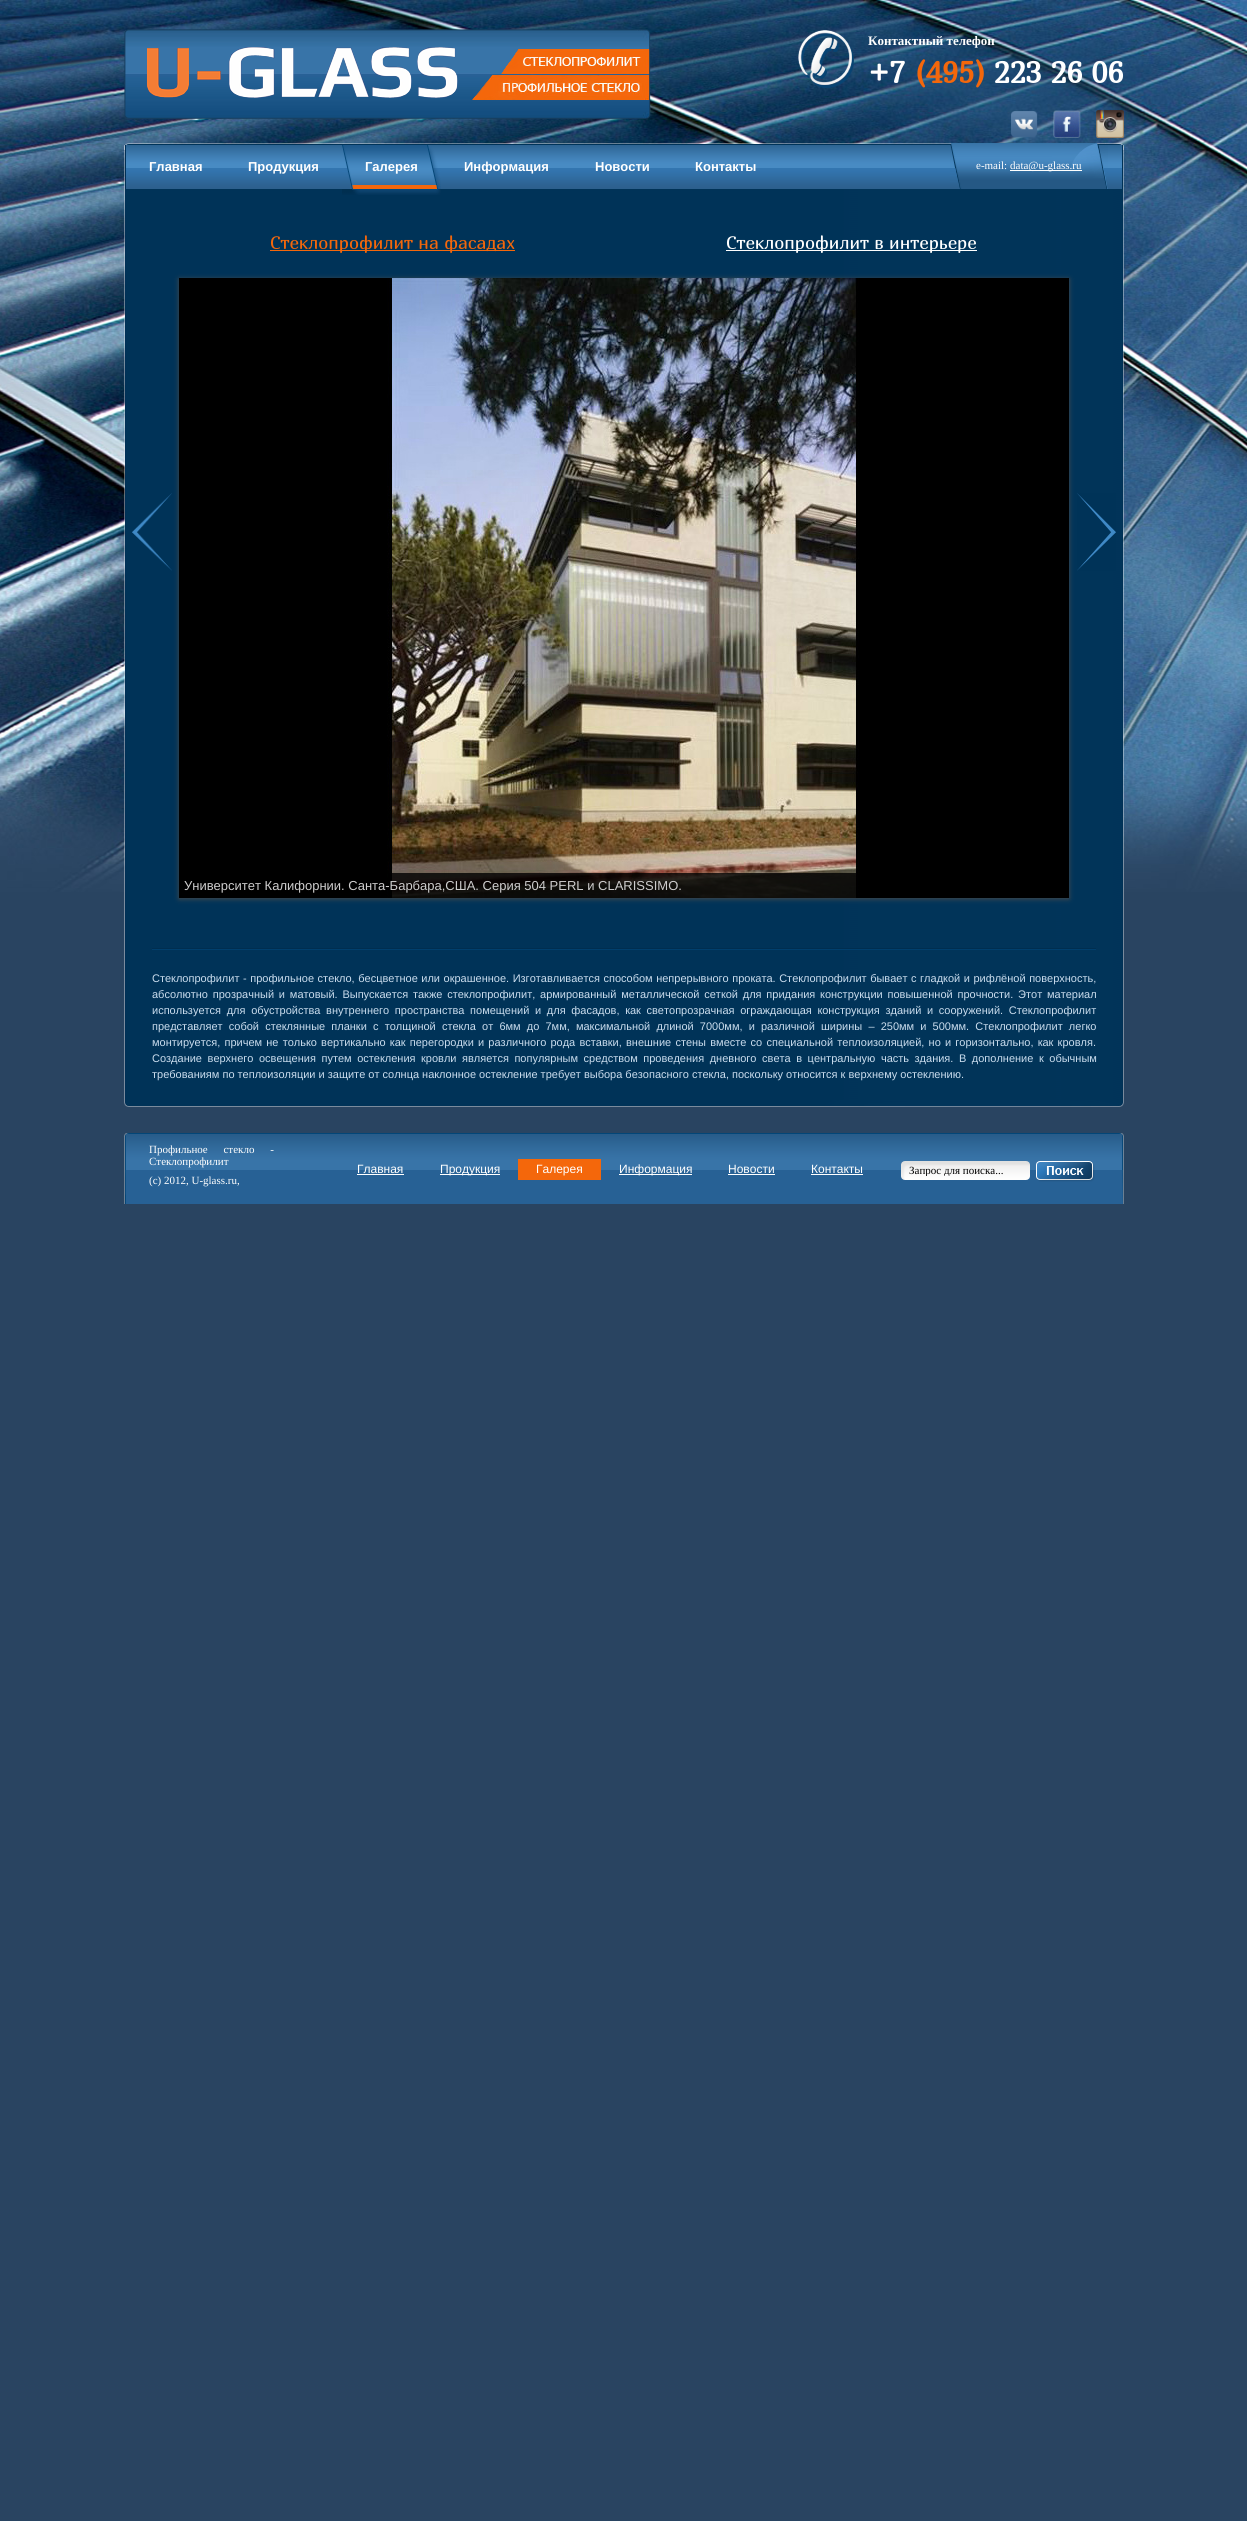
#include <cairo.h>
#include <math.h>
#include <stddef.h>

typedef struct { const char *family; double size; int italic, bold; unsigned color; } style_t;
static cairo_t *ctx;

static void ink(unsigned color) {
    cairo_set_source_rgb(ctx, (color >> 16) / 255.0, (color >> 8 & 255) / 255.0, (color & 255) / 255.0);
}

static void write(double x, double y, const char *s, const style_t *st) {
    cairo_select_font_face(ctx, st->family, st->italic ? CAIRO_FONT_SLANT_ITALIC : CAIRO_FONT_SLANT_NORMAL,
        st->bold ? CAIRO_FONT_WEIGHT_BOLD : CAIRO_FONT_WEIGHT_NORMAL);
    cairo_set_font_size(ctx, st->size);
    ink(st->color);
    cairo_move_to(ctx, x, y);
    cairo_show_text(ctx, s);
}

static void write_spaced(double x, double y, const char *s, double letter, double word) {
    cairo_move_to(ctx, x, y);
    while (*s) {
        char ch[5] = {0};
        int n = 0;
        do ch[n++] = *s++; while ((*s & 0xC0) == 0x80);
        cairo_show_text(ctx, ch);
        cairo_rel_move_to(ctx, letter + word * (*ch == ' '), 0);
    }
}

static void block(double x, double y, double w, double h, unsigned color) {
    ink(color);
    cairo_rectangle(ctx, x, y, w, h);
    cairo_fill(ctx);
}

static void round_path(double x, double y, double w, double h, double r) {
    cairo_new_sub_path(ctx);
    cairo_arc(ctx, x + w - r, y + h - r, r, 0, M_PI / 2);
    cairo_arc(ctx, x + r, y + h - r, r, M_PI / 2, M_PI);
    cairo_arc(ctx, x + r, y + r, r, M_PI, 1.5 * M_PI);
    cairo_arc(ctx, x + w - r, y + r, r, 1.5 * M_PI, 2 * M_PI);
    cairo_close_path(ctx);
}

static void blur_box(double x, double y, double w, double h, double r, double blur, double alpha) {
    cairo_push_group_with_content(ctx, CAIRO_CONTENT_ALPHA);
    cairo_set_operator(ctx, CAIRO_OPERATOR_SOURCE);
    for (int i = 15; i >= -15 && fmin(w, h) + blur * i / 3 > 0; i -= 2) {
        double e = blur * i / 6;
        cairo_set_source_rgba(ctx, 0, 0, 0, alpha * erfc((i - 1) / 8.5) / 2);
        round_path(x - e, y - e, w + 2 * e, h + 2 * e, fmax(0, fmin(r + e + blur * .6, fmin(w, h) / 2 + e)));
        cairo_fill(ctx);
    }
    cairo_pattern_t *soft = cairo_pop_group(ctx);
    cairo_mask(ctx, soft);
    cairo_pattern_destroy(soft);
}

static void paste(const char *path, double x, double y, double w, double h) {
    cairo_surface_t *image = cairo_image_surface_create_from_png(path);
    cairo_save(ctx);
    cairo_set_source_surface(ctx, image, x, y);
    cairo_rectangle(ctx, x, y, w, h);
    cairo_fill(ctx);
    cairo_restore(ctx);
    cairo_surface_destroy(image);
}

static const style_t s1 = {"Liberation Serif", 13, 0, 1, 0xffffff};
static const style_t s2 = {"Marmelad", 30, 0, 1, 0xffffff};
static const style_t s3 = {"Marmelad", 30, 0, 1, 0xf4670b};
static const style_t s4 = {"Liberation Sans", 13, 0, 1, 0xffffff};
static const style_t s5 = {"Liberation Serif", 11, 0, 0, 0xffffff};
static const style_t s6 = {"Marmelad", 18, 0, 0, 0xf4670b};
static const style_t s7 = {"Marmelad", 18, 0, 0, 0xffffff};
static const style_t s8 = {"Liberation Sans", 13, 0, 0, 0xcecdcd};
static const style_t s9 = {"Liberation Sans", 11, 0, 0, 0xcbddee};
static const style_t s10 = {"Liberation Sans", 12, 0, 0, 0xffffff};
static const style_t s11 = {"Liberation Serif", 11, 0, 0, 0x000000};

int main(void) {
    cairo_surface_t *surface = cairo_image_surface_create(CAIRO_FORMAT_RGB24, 1247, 2521);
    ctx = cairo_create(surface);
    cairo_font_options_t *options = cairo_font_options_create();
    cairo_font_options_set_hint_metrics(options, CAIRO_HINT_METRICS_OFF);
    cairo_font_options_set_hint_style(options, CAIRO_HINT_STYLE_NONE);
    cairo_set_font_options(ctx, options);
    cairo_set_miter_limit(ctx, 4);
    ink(0x294461);
    cairo_paint(ctx);
    paste("pic1.png", 0, 0, 1247, 892);
    paste("pic2.png", 124, 29, 527, 90);
    paste("pic3.png", 798, 30, 56, 58);
    write(868, 45, "Контактный телефон", &s1);
    write(868, 83, "+7", &s2);
    write(915, 83, "(495)", &s3);
    write(994, 83, "223 26 06", &s2);
    paste("pic4.png", 1011, 111, 27, 27);
    paste("pic5.png", 1053, 110, 28, 28);
    paste("pic6.png", 1096, 110, 28, 28);
    paste("pic7.png", 124, 143, 1000, 7);
    paste("pic8.png", 124, 1100, 1000, 7);
    paste("pic9.png", 124, 145, 1000, 955);
    paste("pic10.png", 126, 145, 996, 44);
    write(149, 171, "Главная", &s4);
    write(248, 171, "Продукция", &s4);
    paste("pic11.png", 342, 145, 23, 50);
    paste("pic12.png", 365, 145, 76, 50);
    write(365, 171, "Галерея", &s4);
    write(464, 171, "Информация", &s4);
    write(595, 171, "Новости", &s4);
    write(695, 171, "Контакты", &s4);
    paste("pic13.png", 950, 143, 15, 46);
    paste("pic14.png", 965, 143, 143, 46);
    write(976, 169, "e-mail:", &s5);
    block(1010, 170, 72, 1, 0xffffff);
    write(1010, 169, "data@u-glass.ru", &s5);
    block(270, 250, 245, 1, 0xf4670b);
    write(270, 249, "Стеклопрофилит на фасадах", &s6);
    block(726, 250, 251, 1, 0xffffff);
    write(726, 249, "Стеклопрофилит в интерьере", &s7);
    ink(0x4a4a4a);
    blur_box(179, 279, 890, 620, 0, 2.5, 1);
    paste("pic15.png", 179, 278, 890, 620);
    paste("pic16.png", 132, 493, 40, 78);
    paste("pic17.png", 1077, 493, 39, 78);
    cairo_set_source_rgba(ctx, 0, 0, 0, 0.8);
    cairo_rectangle(ctx, 388, 873, 468, 25);
    cairo_fill(ctx);
    write(184, 890, "Университет Калифорнии. Санта-Барбара,США. Серия 504 PERL и CLARISSIMO.", &s8);
    paste("pic18.png", 152, 948, 944, 2);
    cairo_set_font_size(ctx, 11);
    ink(0xcbddee);
    write_spaced(152, 982, "Стеклопрофилит - профильное стекло, бесцветное или окрашенное. Изготавливается способом непрерывного проката. Стеклопрофилит бывает с гладкой и рифлёной поверхность,", 0, 0.5);
    write_spaced(152, 998, "абсолютно прозрачный и матовый. Выпускается также стеклопрофилит, армированный металлической сеткой для придания конструкции повышенной прочности. Этот материал", 0, 1.75);
    write_spaced(152, 1014, "используется для обустройства внутреннего пространства помещений и для фасадов, как светопрозрачная ограждающая конструкция зданий и сооружений. Стеклопрофилит", 0, 2.6);
    write_spaced(152, 1030, "представляет собой стеклянные планки с толщиной стекла от 6мм до 7мм, максимальной длиной 7000мм, и различной ширины – 250мм и 500мм. Стеклопрофилит легко", 0, 3.1);
    write_spaced(152, 1046, "монтируется, причем не только вертикально как перегородки и различного рода вставки, внешние стены вместе со специальной теплоизоляцией, но и горизонтально, как кровля.", 0, 1.15);
    write_spaced(152, 1062, "Создание верхнего освещения путем остекления кровли является популярным средством проведения дневного света в центральную часть здания. В дополнение к обычным", 0, 2.5);
    write(152, 1078, "требованиям по теплоизоляции и защите от солнца наклонное остекление требует выбора безопасного стекла, поскольку относится к верхнему остеклению.", &s9);
    paste("pic19.png", 124, 1133, 1000, 71);
    cairo_select_font_face(ctx, "Liberation Serif", CAIRO_FONT_SLANT_NORMAL, CAIRO_FONT_WEIGHT_NORMAL);
    ink(0xffffff);
    write_spaced(149, 1153, "Профильное стекло -", 0, 13);
    write(149, 1165, "Стеклопрофилит", &s5);
    write(149, 1184, "(с) 2012, U-glass.ru,", &s5);
    write(357, 1173, "Главная", &s10);
    block(357, 1174, 47, 1, 0xffffff);
    block(440, 1174, 60, 1, 0xffffff);
    write(440, 1173, "Продукция", &s10);
    block(518, 1159, 83, 21, 0xf4670b);
    write(536, 1173, "Галерея", &s10);
    block(619, 1174, 73, 1, 0xffffff);
    write(619, 1173, "Информация", &s10);
    write(728, 1173, "Новости", &s10);
    block(728, 1174, 47, 1, 0xffffff);
    write(811, 1173, "Контакты", &s10);
    block(811, 1174, 52, 1, 0xffffff);
    paste("pic20.png", 901, 1161, 129, 19);
    cairo_save(ctx);
    cairo_rectangle(ctx, 909, 1164, 116, 12);
    cairo_clip(ctx);
    write(909, 1174, "Запрос для поиска...", &s11);
    cairo_restore(ctx);
    paste("pic21.png", 1036, 1161, 59, 21);
    cairo_surface_write_to_png(surface, "screenshot.png");
    cairo_font_options_destroy(options);
    cairo_destroy(ctx);
    cairo_surface_destroy(surface);
    return 0;
}
